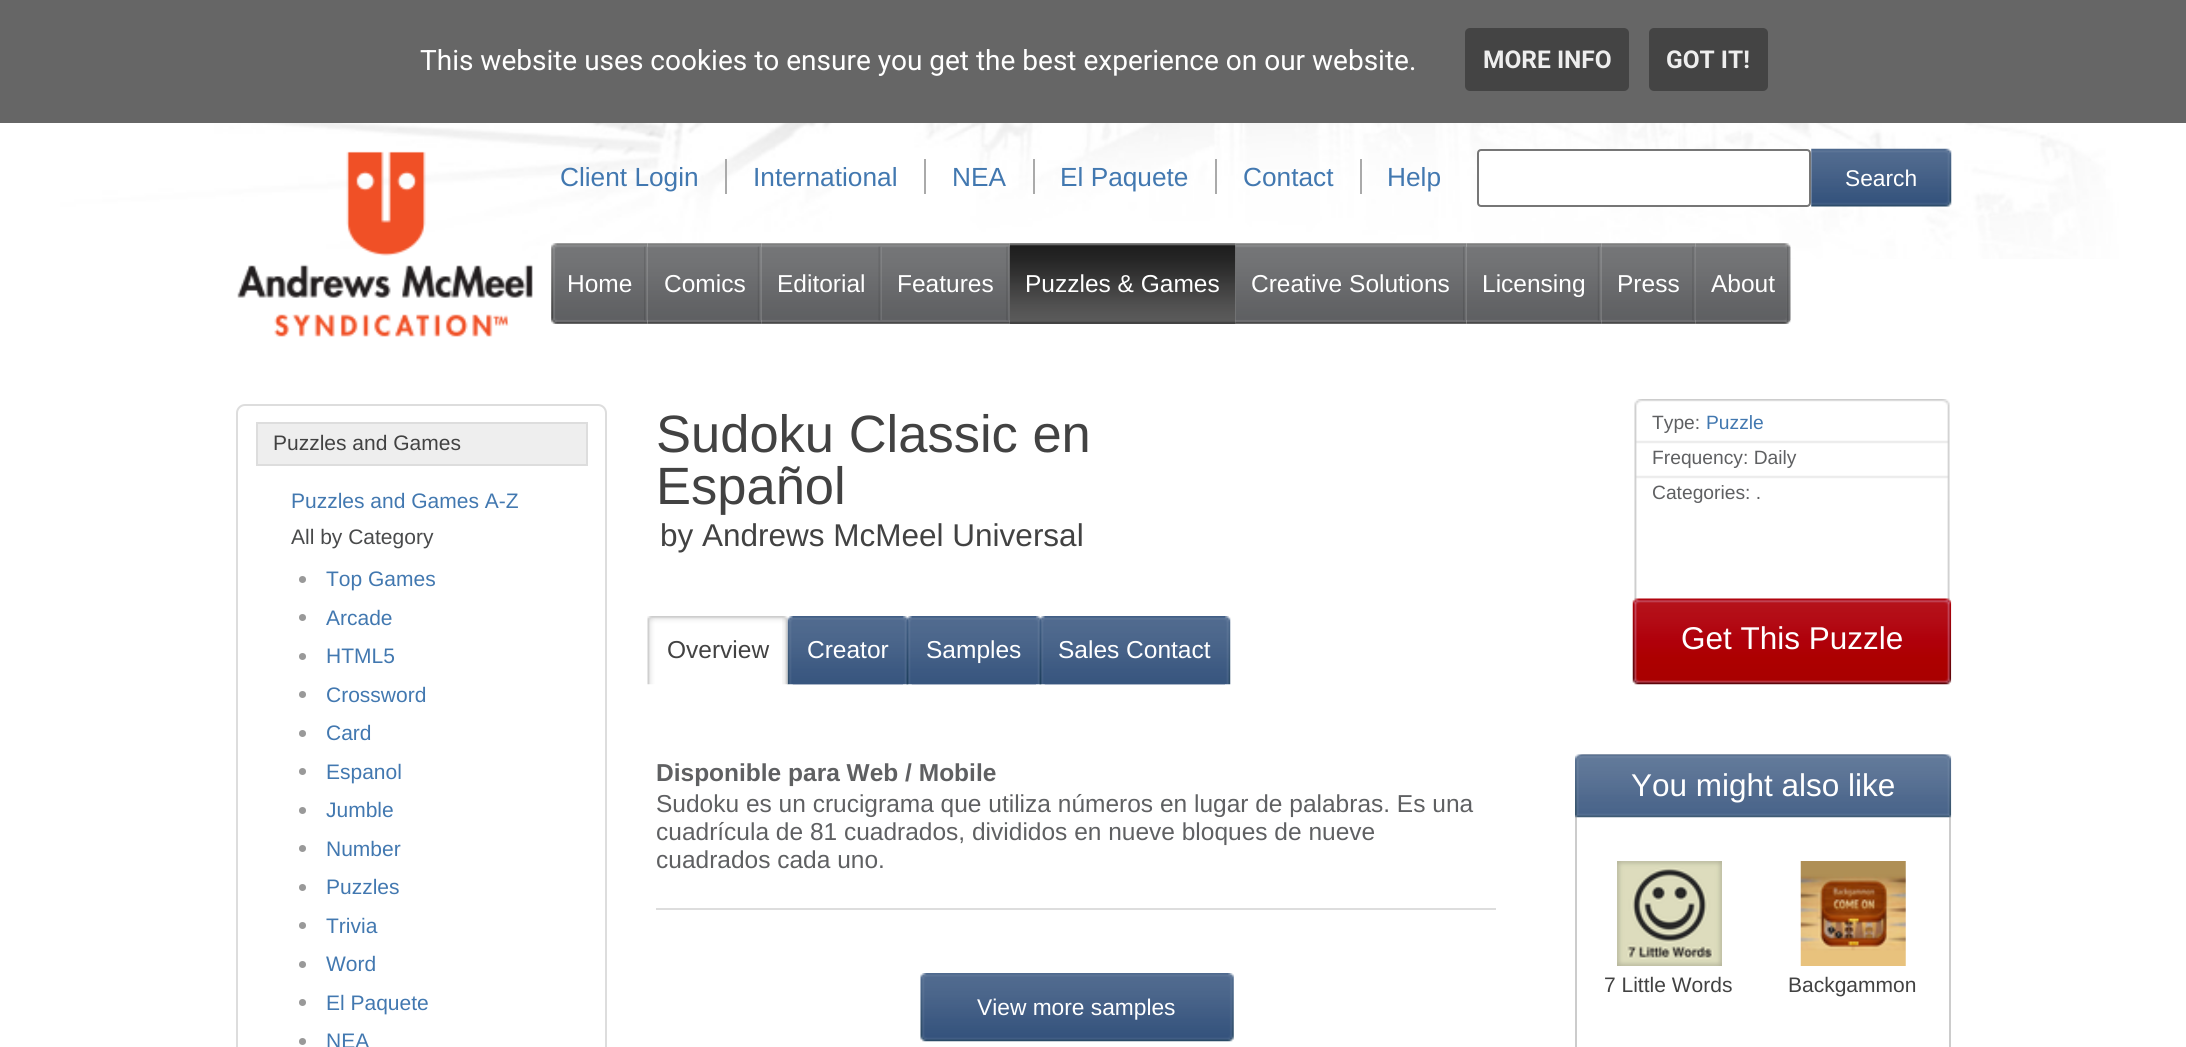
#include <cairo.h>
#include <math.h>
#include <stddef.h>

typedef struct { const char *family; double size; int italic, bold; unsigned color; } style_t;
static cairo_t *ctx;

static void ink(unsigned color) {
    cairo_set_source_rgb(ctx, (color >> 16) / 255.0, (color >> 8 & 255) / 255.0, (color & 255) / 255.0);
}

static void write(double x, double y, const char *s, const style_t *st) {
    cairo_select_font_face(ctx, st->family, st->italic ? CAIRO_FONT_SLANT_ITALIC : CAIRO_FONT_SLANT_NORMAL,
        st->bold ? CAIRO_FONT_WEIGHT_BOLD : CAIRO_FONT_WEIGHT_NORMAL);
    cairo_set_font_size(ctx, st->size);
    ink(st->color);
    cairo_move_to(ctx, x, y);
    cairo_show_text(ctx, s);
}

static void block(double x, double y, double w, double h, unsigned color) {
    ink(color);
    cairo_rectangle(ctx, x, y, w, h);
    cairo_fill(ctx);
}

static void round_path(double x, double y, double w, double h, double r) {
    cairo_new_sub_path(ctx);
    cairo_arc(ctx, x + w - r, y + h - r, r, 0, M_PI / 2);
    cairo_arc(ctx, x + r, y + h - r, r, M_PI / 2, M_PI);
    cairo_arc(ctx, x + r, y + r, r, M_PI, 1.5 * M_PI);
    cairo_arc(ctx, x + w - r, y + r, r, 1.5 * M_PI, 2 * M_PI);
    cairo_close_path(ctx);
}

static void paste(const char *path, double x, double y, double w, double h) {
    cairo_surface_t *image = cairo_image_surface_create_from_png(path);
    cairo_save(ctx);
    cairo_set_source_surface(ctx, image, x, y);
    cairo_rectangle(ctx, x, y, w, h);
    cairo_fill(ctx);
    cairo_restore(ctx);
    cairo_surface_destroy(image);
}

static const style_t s1 = {"Roboto", 28, 0, 0, 0xffffff};
static const style_t s2 = {"Roboto", 24.5, 0, 1, 0xeeeeee};
static const style_t s3 = {"Liberation Sans", 26.25, 0, 0, 0x4278b0};
static const style_t s4 = {"Liberation Sans", 22.75, 0, 0, 0xffffff};
static const style_t s5 = {"Liberation Sans", 24.5, 0, 0, 0xffffff};
static const style_t s6 = {"Liberation Sans", 21, 0, 0, 0x424242};
static const style_t s7 = {"Liberation Sans", 21, 0, 0, 0x4278b0};
static const style_t s8 = {"Liberation Sans", 21, 0, 0, 0x494a4b};
static const style_t s9 = {"Liberation Sans", 52.5, 0, 0, 0x424242};
static const style_t s10 = {"Liberation Sans", 31.5, 0, 0, 0x424242};
static const style_t s11 = {"Liberation Sans", 19.25, 0, 0, 0x5f6062};
static const style_t s12 = {"Liberation Sans", 19.25, 0, 0, 0x4278b0};
static const style_t s13 = {"Liberation Sans", 24.5, 0, 0, 0x424242};
static const style_t s14 = {"Liberation Sans", 31.5, 0, 0, 0xffffff};
static const style_t s15 = {"Liberation Sans", 24.5, 0, 1, 0x5f6062};
static const style_t s16 = {"Liberation Sans", 24.5, 0, 0, 0x5f6062};

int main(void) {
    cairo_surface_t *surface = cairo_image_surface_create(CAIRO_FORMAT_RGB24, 2186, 1047);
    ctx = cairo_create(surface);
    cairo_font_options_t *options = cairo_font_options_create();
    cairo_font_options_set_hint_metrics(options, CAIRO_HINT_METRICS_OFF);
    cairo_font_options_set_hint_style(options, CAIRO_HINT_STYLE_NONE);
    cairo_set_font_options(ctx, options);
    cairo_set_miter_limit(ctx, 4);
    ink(0xffffff);
    cairo_paint(ctx);
    paste("pic1.png", 41, 123, 2078, 136);
    block(0, 0, 2186, 123, 0x666666);
    write(420, 70, "This website uses cookies to ensure you get the best experience on our website.", &s1);
    ink(0x444444);
    round_path(1465, 28, 164, 63, 5);
    cairo_fill(ctx);
    write(1483, 68, "MORE INFO", &s2);
    ink(0x444444);
    round_path(1649, 28, 119, 63, 5);
    cairo_fill(ctx);
    write(1666, 68, "GOT IT!", &s2);
    paste("pic2.png", 237, 151, 296, 186);
    block(725, 159, 2, 35, 0xaaaaaa);
    write(560, 186, "Client Login", &s3);
    block(924, 159, 2, 35, 0xaaaaaa);
    write(753, 186, "International", &s3);
    block(1033, 159, 2, 35, 0xaaaaaa);
    write(952, 186, "NEA", &s3);
    block(1215, 159, 2, 35, 0xaaaaaa);
    write(1060, 186, "El Paquete", &s3);
    block(1360, 159, 2, 35, 0xaaaaaa);
    write(1243, 186, "Contact", &s3);
    write(1387, 186, "Help", &s3);
    ink(0xffffff);
    round_path(1478, 150, 332, 56, 3);
    cairo_fill_preserve(ctx);
    ink(0x767676);
    cairo_stroke(ctx);
    paste("pic3.png", 1811, 148, 141, 59);
    write(1845, 186, "Search", &s4);
    paste("pic4.png", 551, 243, 97, 81);
    paste("pic5.png", 644, 246, 4, 75);
    write(567, 292, "Home", &s5);
    paste("pic6.png", 647, 243, 115, 81);
    paste("pic7.png", 757, 246, 5, 75);
    write(664, 292, "Comics", &s5);
    paste("pic8.png", 761, 243, 121, 81);
    paste("pic9.png", 878, 246, 4, 75);
    write(777, 292, "Editorial", &s5);
    paste("pic10.png", 882, 243, 128, 81);
    paste("pic11.png", 1006, 246, 4, 75);
    write(897, 292, "Features", &s5);
    paste("pic12.png", 1009, 243, 227, 81);
    paste("pic13.png", 1009, 243, 227, 81);
    write(1025, 292, "Puzzles & Games", &s5);
    paste("pic14.png", 1235, 243, 232, 81);
    paste("pic5.png", 1463, 246, 4, 75);
    write(1251, 292, "Creative Solutions", &s5);
    paste("pic15.png", 1466, 243, 136, 81);
    paste("pic16.png", 1597, 246, 5, 75);
    write(1482, 292, "Licensing", &s5);
    paste("pic17.png", 1601, 243, 95, 81);
    paste("pic11.png", 1692, 246, 4, 75);
    write(1617, 292, "Press", &s5);
    paste("pic18.png", 1695, 243, 96, 81);
    paste("pic19.png", 1786, 246, 5, 75);
    write(1711, 292, "About", &s5);
    round_path(237, 405, 369, 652, 8);
    ink(0xdddddd);
    cairo_stroke(ctx);
    ink(0xeeeeee);
    cairo_rectangle(ctx, 257, 423, 330, 42);
    cairo_fill_preserve(ctx);
    ink(0xdddddd);
    cairo_stroke(ctx);
    write(273, 450, "Puzzles and Games", &s6);
    write(291, 508, "Puzzles and Games A-Z", &s7);
    write(291, 544, "All by Category", &s8);
    ink(0x999999);
    cairo_new_path(ctx);
    cairo_arc(ctx, 302.5, 579.5, 3.5, 0, 2 * M_PI);
    cairo_fill(ctx);
    write(326, 586, "Top Games", &s7);
    ink(0x999999);
    cairo_new_path(ctx);
    cairo_arc(ctx, 302.5, 617.5, 3.5, 0, 2 * M_PI);
    cairo_fill(ctx);
    write(326, 625, "Arcade", &s7);
    ink(0x999999);
    cairo_new_path(ctx);
    cairo_arc(ctx, 302.5, 656.5, 3.5, 0, 2 * M_PI);
    cairo_fill(ctx);
    write(326, 663, "HTML5", &s7);
    ink(0x999999);
    cairo_new_path(ctx);
    cairo_arc(ctx, 302.5, 694.5, 3.5, 0, 2 * M_PI);
    cairo_fill(ctx);
    write(326, 702, "Crossword", &s7);
    ink(0x999999);
    cairo_new_path(ctx);
    cairo_arc(ctx, 302.5, 733.5, 3.5, 0, 2 * M_PI);
    cairo_fill(ctx);
    write(326, 740, "Card", &s7);
    ink(0x999999);
    cairo_new_path(ctx);
    cairo_arc(ctx, 302.5, 771.5, 3.5, 0, 2 * M_PI);
    cairo_fill(ctx);
    write(326, 779, "Espanol", &s7);
    ink(0x999999);
    cairo_new_path(ctx);
    cairo_arc(ctx, 302.5, 810.5, 3.5, 0, 2 * M_PI);
    cairo_fill(ctx);
    write(326, 817, "Jumble", &s7);
    ink(0x999999);
    cairo_new_path(ctx);
    cairo_arc(ctx, 302.5, 848.5, 3.5, 0, 2 * M_PI);
    cairo_fill(ctx);
    write(326, 856, "Number", &s7);
    ink(0x999999);
    cairo_new_path(ctx);
    cairo_arc(ctx, 302.5, 887.5, 3.5, 0, 2 * M_PI);
    cairo_fill(ctx);
    write(326, 894, "Puzzles", &s7);
    ink(0x999999);
    cairo_new_path(ctx);
    cairo_arc(ctx, 302.5, 925.5, 3.5, 0, 2 * M_PI);
    cairo_fill(ctx);
    write(326, 933, "Trivia", &s7);
    ink(0x999999);
    cairo_new_path(ctx);
    cairo_arc(ctx, 302.5, 964.5, 3.5, 0, 2 * M_PI);
    cairo_fill(ctx);
    write(326, 971, "Word", &s7);
    ink(0x999999);
    cairo_new_path(ctx);
    cairo_arc(ctx, 302.5, 1002.5, 3.5, 0, 2 * M_PI);
    cairo_fill(ctx);
    write(326, 1010, "El Paquete", &s7);
    ink(0x999999);
    cairo_new_path(ctx);
    cairo_arc(ctx, 302.5, 1041.5, 3.5, 0, 2 * M_PI);
    cairo_fill(ctx);
    write(326, 1048, "NEA", &s7);
    write(656, 452, "Sudoku Classic en", &s9);
    write(656, 504, "Español", &s9);
    write(660, 546, "by Andrews McMeel Universal", &s10);
    paste("pic20.png", 1634, 399, 316, 206);
    write(1652, 429, "Type:", &s11);
    write(1706, 429, "Puzzle", &s12);
    write(1652, 464, "Frequency: Daily", &s11);
    write(1652, 499, "Categories: .", &s11);
    paste("pic21.png", 647, 616, 136, 69);
    paste("pic23.png", 787, 616, 116, 69);
    paste("pic22.png", 782, 616, 6, 69);
    write(667, 658, "Overview", &s13);
    paste("pic25.png", 906, 616, 130, 69);
    paste("pic24.png", 792, 616, 117, 69);
    write(807, 658, "Creator", &s5);
    paste("pic27.png", 1039, 616, 186, 69);
    paste("pic26.png", 911, 616, 131, 69);
    write(926, 658, "Samples", &s5);
    paste("pic28.png", 1044, 616, 187, 69);
    write(1058, 658, "Sales Contact", &s5);
    paste("pic29.png", 1632, 598, 320, 87);
    write(1681, 649, "Get This Puzzle", &s14);
    write(656, 781, "Disponible para Web / Mobile", &s15);
    write(656, 812, "Sudoku es un crucigrama que utiliza números en lugar de palabras. Es una", &s16);
    write(656, 840, "cuadrícula de 81 cuadrados, divididos en nueve bloques de nueve", &s16);
    write(656, 868, "cuadrados cada uno.", &s16);
    block(656, 908, 840, 2, 0xdddddd);
    paste("pic30.png", 920, 973, 314, 69);
    write(977, 1015, "View more samples", &s4);
    round_path(1576, 755, 374, 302, 8);
    ink(0xcccccc);
    cairo_stroke(ctx);
    paste("pic31.png", 1575, 754, 377, 64);
    write(1631, 796, "You might also like", &s14);
    paste("pic32.png", 1617, 861, 105, 105);
    write(1604, 992, "7 Little Words", &s6);
    paste("pic33.png", 1800, 861, 106, 105);
    write(1788, 992, "Backgammon", &s6);
    cairo_surface_write_to_png(surface, "screenshot.png");
    cairo_font_options_destroy(options);
    cairo_destroy(ctx);
    cairo_surface_destroy(surface);
    return 0;
}
